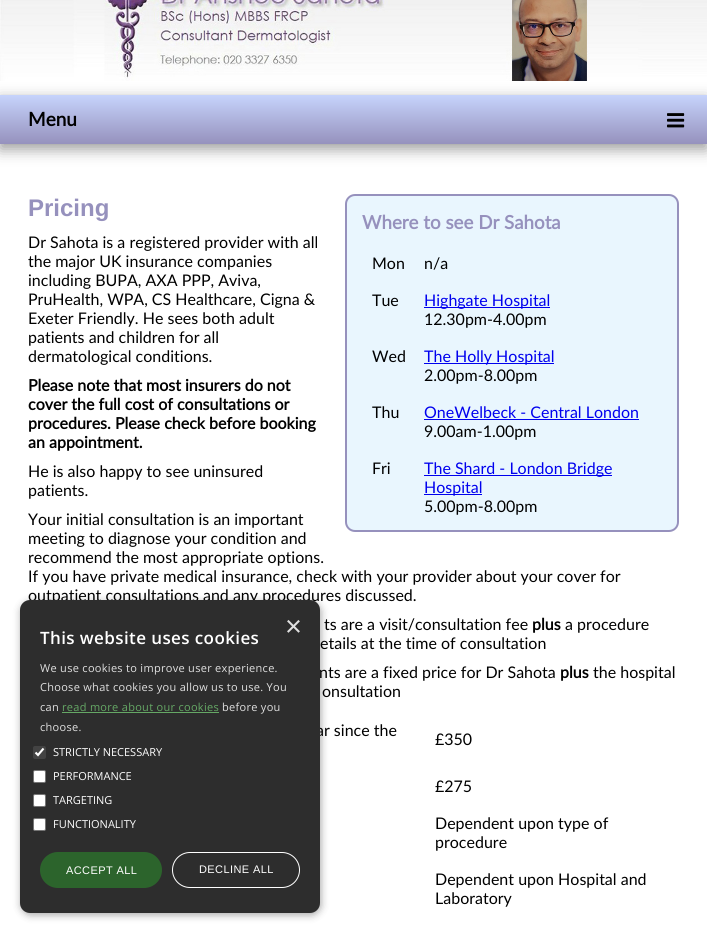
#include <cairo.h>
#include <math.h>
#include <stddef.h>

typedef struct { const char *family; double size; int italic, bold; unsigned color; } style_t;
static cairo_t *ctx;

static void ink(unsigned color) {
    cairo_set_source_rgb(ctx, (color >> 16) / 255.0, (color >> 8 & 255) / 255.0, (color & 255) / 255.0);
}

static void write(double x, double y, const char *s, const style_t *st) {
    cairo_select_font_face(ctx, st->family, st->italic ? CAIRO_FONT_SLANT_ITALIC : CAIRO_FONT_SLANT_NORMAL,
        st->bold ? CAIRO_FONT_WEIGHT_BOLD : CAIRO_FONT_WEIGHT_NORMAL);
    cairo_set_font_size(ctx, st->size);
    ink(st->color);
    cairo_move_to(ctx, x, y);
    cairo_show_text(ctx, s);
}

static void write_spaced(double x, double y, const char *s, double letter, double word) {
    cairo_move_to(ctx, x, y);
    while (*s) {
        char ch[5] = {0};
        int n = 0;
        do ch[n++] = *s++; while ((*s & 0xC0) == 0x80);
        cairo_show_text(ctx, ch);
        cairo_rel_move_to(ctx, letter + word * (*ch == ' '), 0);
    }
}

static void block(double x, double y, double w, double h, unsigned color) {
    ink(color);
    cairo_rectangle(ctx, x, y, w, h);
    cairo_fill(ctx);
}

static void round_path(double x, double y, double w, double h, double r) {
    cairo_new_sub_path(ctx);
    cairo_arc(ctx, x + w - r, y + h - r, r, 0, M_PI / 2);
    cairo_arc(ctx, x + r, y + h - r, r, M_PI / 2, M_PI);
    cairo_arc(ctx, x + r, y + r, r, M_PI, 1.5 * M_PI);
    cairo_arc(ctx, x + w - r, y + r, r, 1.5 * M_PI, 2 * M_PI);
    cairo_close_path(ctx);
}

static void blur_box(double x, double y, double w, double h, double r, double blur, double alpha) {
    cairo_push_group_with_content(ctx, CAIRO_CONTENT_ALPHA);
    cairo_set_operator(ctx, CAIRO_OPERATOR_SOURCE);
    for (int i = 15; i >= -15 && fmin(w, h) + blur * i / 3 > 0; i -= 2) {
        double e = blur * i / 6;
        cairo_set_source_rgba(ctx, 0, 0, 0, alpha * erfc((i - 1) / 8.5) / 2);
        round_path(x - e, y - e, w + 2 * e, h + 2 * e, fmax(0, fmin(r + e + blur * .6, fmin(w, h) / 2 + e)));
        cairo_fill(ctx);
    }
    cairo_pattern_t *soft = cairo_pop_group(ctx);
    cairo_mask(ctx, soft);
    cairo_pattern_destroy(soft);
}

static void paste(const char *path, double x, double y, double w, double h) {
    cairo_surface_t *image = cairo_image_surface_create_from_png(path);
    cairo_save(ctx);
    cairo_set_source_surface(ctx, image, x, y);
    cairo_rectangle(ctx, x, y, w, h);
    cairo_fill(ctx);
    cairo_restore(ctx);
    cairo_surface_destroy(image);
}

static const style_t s1 = {"Lato", 19, 0, 1, 0x000000};
static const style_t s2 = {"Liberation Sans", 24, 0, 1, 0x9691bd};
static const style_t s3 = {"Lato", 16, 0, 0, 0x000000};
static const style_t s4 = {"Lato", 18.75, 0, 1, 0x9691bd};
static const style_t s5 = {"Lato", 16, 0, 0, 0x0000ee};
static const style_t s6 = {"Lato", 16, 0, 1, 0x000000};
static const style_t s7 = {"Liberation Sans", 29, 0, 0, 0xe0e0e0};
static const style_t s8 = {"Open Sans", 11, 0, 0, 0xffffff};

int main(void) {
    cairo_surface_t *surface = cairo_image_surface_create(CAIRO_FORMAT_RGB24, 707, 933);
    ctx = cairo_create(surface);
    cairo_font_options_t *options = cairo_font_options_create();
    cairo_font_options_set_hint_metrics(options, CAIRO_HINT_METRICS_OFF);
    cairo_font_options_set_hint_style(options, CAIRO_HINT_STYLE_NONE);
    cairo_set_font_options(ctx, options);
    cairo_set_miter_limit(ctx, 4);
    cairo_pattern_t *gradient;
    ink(0xffffff);
    cairo_paint(ctx);
    paste("pic1.png", 0, 0, 707, 81);
    gradient = cairo_pattern_create_linear(354, 95, 354, 144);
    cairo_pattern_add_color_stop_rgba(gradient, 0, 0.78, 0.831, 0.988, 1);
    cairo_pattern_add_color_stop_rgba(gradient, 1, 0.588, 0.569, 0.741, 1);
    cairo_set_source(ctx, gradient);
    cairo_pattern_destroy(gradient);
    cairo_rectangle(ctx, 0, 95, 707, 49);
    cairo_fill(ctx);
    cairo_save(ctx);
    cairo_set_fill_rule(ctx, CAIRO_FILL_RULE_EVEN_ODD);
    cairo_new_path(ctx);
    cairo_move_to(ctx, 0, 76);
    cairo_line_to(ctx, 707, 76);
    cairo_line_to(ctx, 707, 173);
    cairo_line_to(ctx, 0, 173);
    cairo_close_path(ctx);
    cairo_move_to(ctx, 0, 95);
    cairo_line_to(ctx, 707, 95);
    cairo_line_to(ctx, 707, 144);
    cairo_line_to(ctx, 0, 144);
    cairo_close_path(ctx);
    cairo_clip(ctx);
    ink(0x999999);
    blur_box(0, 100, 707, 49, 0, 7.5, 1);
    cairo_restore(ctx);
    write(28, 126, "Menu", &s1);
    paste("pic2.png", 667, 113, 18, 15);
    write(28, 216, "Pricing", &s2);
    write(28, 248, "Dr Sahota is a registered provider with all", &s3);
    write(28, 267, "the major UK insurance companies", &s3);
    write(28, 286, "including BUPA, AXA PPP, Aviva,", &s3);
    write(28, 305, "PruHealth, WPA, CS Healthcare, Cigna &", &s3);
    write(28, 324, "Exeter Friendly. He sees both adult", &s3);
    write(28, 343, "patients and children for all", &s3);
    write(28, 362, "dermatological conditions.", &s3);
    ink(0xe9f6fe);
    round_path(346, 195, 332, 336, 9);
    cairo_fill_preserve(ctx);
    ink(0x9691bd);
    cairo_stroke(ctx);
    write(362, 229, "Where to see Dr Sahota", &s4);
    write(372, 269, "Mon", &s3);
    write(424, 269, "n/a", &s3);
    write(372, 306, "Tue", &s3);
    block(424, 307, 126, 1, 0x0000ee);
    write(424, 306, "Highgate Hospital", &s5);
    write(424, 325, "12.30pm-4.00pm", &s3);
    write(372, 362, "Wed", &s3);
    block(424, 363, 130, 1, 0x0000ee);
    write(424, 362, "The Holly Hospital", &s5);
    write(424, 381, "2.00pm-8.00pm", &s3);
    write(372, 418, "Thu", &s3);
    write(424, 418, "OneWelbeck - Central London", &s5);
    block(424, 419, 215, 1, 0x0000ee);
    write(424, 437, "9.00am-1.00pm", &s3);
    write(372, 474, "Fri", &s3);
    block(424, 475, 188, 1, 0x0000ee);
    write(424, 474, "The Shard - London Bridge", &s5);
    block(424, 494, 58, 1, 0x0000ee);
    write(424, 493, "Hospital", &s5);
    write(424, 512, "5.00pm-8.00pm", &s3);
    write(28, 391, "Please note that most insurers do not", &s6);
    write(28, 410, "cover the full cost of consultations or", &s6);
    write(28, 429, "procedures. Please check before booking", &s6);
    write(28, 448, "an appointment.", &s6);
    write(28, 477, "He is also happy to see uninsured", &s3);
    write(28, 496, "patients.", &s3);
    write(28, 525, "Your initial consultation is an important", &s3);
    write(28, 544, "meeting to diagnose your condition and", &s3);
    write(28, 563, "recommend the most appropriate options.", &s3);
    write(28, 582, "If you have private medical insurance, check with your provider about your cover for", &s3);
    write(28, 601, "outpatient consultations and any procedures discussed.", &s3);
    write(324, 630, "ts are a visit/consultation fee", &s3);
    write(532, 630, "plus", &s6);
    write(565, 630, "a procedure", &s3);
    write(320, 649, "etails at the time of consultation", &s3);
    write(319, 678, "nts are a fixed price for Dr Sahota", &s3);
    write(560, 678, "plus", &s6);
    write(593, 678, "the hospital", &s3);
    write(322, 697, "onsultation", &s3);
    write(316, 736, "ar since the", &s3);
    write(435, 745, "£350", &s3);
    write(435, 792, "£275", &s3);
    write(435, 829, "Dependent upon type of", &s3);
    write(435, 848, "procedure", &s3);
    write(435, 885, "Dependent upon Hospital and", &s3);
    write(435, 904, "Laboratory", &s3);
    ink(0x000000);
    blur_box(21, 602, 300, 313, 10, 4, 0.35);
    ink(0x2d2d2d);
    round_path(20, 600, 300, 313, 10);
    cairo_fill(ctx);
    write(285, 636, "×", &s7);
    cairo_select_font_face(ctx, "Open Sans SemiBold", CAIRO_FONT_SLANT_NORMAL, CAIRO_FONT_WEIGHT_NORMAL);
    cairo_set_font_size(ctx, 17);
    ink(0xffffff);
    write_spaced(40, 644, "This website uses cookies", 0.4, 0);
    cairo_select_font_face(ctx, "Open Sans", CAIRO_FONT_SLANT_NORMAL, CAIRO_FONT_WEIGHT_NORMAL);
    cairo_set_font_size(ctx, 11);
    ink(0xe0e0e0);
    write_spaced(40, 672, "We use cookies to improve user experience.", 0.3, 0);
    write_spaced(40, 691, "Choose what cookies you allow us to use. You", 0.3, 0);
    write_spaced(40, 711, "can", 0.3, 0);
    ink(0x65a865);
    write_spaced(62, 711, "read more about our cookies", 0.3, 0);
    block(62, 712, 157, 1, 0x65a865);
    ink(0xe0e0e0);
    write_spaced(222, 711, "before you", 0.3, 0);
    write_spaced(40, 731, "choose.", 0.3, 0);
    ink(0x434343);
    round_path(33, 746, 13, 13, 2);
    cairo_fill(ctx);
    cairo_new_path(ctx);
    cairo_move_to(ctx, 35.5, 752.5);
    cairo_line_to(ctx, 38, 755);
    cairo_line_to(ctx, 43.5, 748.5);
    ink(0xffffff);
    cairo_set_line_width(ctx, 2.1);
    cairo_stroke(ctx);
    write(53, 756, "STRICTLY NECESSARY", &s8);
    round_path(33.5, 770.5, 12, 12, 1.5);
    cairo_fill_preserve(ctx);
    ink(0x767676);
    cairo_set_line_width(ctx, 1);
    cairo_stroke(ctx);
    write(53, 780, "PERFORMANCE", &s8);
    round_path(33.5, 794.5, 12, 12, 1.5);
    cairo_fill_preserve(ctx);
    ink(0x767676);
    cairo_stroke(ctx);
    write(53, 804, "TARGETING", &s8);
    round_path(33.5, 818.5, 12, 12, 1.5);
    cairo_fill_preserve(ctx);
    ink(0x767676);
    cairo_stroke(ctx);
    write(53, 828, "FUNCTIONALITY", &s8);
    ink(0x2c642c);
    round_path(40, 852, 122, 36, 18);
    cairo_fill(ctx);
    cairo_select_font_face(ctx, "Liberation Sans", CAIRO_FONT_SLANT_NORMAL, CAIRO_FONT_WEIGHT_NORMAL);
    ink(0xffffff);
    write_spaced(66, 874, "ACCEPT ALL", 0.4, 0);
    round_path(172.5, 852.5, 127, 35, 17.5);
    cairo_stroke(ctx);
    write_spaced(199, 873, "DECLINE ALL", 0.4, 0);
    cairo_surface_write_to_png(surface, "screenshot.png");
    cairo_font_options_destroy(options);
    cairo_destroy(ctx);
    cairo_surface_destroy(surface);
    return 0;
}
